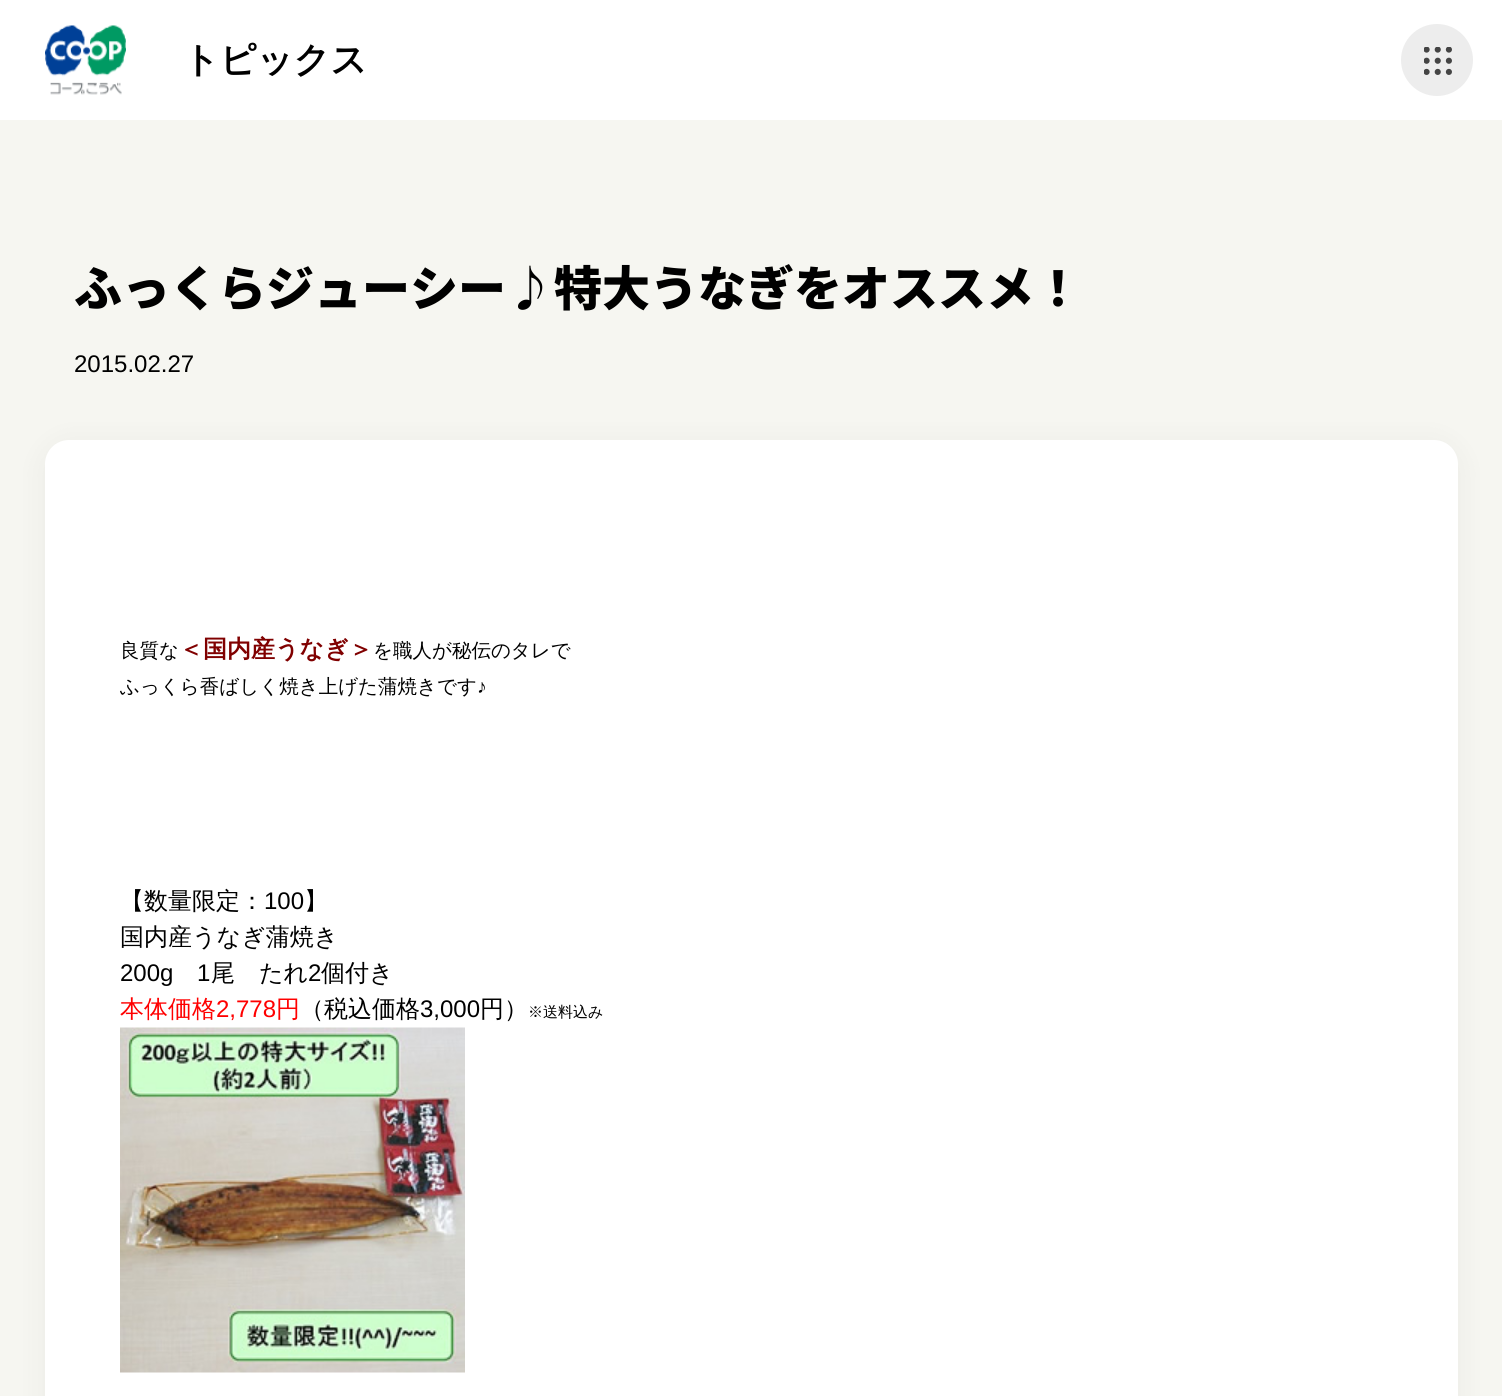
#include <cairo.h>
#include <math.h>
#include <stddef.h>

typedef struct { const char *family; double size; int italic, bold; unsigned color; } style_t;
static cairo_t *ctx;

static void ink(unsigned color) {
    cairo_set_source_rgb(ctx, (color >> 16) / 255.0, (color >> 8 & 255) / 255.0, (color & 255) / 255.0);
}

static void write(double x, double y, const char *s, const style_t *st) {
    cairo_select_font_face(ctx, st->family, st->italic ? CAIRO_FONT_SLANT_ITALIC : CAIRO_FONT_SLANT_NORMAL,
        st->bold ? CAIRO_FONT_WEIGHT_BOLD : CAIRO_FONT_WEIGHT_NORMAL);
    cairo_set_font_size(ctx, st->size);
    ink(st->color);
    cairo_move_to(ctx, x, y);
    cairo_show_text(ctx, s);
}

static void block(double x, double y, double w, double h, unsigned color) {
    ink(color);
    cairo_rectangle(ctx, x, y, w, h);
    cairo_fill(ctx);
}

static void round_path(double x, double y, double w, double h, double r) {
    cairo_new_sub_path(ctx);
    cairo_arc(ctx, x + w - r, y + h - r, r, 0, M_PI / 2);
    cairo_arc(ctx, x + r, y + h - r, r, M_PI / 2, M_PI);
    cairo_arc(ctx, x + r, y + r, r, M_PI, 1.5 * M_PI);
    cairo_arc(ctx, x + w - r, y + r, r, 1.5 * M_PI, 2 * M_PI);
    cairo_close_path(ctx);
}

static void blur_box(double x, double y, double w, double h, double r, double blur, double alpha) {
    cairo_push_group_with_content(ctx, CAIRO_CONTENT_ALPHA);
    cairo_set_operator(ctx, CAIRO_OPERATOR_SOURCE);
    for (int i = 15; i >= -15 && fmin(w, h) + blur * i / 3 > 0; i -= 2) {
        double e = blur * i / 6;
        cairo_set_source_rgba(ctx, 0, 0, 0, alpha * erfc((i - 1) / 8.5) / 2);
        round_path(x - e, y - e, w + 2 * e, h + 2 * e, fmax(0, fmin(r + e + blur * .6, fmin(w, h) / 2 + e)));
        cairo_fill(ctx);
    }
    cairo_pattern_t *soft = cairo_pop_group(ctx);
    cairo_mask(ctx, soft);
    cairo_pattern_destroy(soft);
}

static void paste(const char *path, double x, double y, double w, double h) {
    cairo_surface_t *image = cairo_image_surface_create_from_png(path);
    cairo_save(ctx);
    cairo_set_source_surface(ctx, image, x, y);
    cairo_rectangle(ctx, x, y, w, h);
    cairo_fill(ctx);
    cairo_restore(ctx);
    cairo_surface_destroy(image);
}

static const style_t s1 = {"WenQuanYi Zen Hei", 36, 0, 1, 0x000000};
static const style_t s2 = {"Noto Sans JP Black", 48, 0, 0, 0x000000};
static const style_t s3 = {"Liberation Sans", 24, 0, 0, 0x000000};
static const style_t s4 = {"WenQuanYi Zen Hei Medium", 19.5, 0, 0, 0x000000};
static const style_t s5 = {"WenQuanYi Zen Hei", 24, 0, 1, 0x800000};
static const style_t s6 = {"Liberation Sans", 19.5, 0, 0, 0x000000};
static const style_t s7 = {"WenQuanYi Zen Hei Medium", 24, 0, 0, 0x000000};
static const style_t s8 = {"WenQuanYi Zen Hei Medium", 24, 0, 0, 0xff0000};
static const style_t s9 = {"Liberation Sans", 24, 0, 0, 0xff0000};
static const style_t s10 = {"WenQuanYi Zen Hei Medium", 15, 0, 0, 0x000000};

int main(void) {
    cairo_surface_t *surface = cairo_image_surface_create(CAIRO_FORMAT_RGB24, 1502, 1396);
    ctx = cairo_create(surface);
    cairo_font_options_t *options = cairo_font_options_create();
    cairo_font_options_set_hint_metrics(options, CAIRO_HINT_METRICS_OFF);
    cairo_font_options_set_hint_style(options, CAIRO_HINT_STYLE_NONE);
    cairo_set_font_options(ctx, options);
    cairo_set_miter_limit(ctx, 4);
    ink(0xf6f6f1);
    cairo_paint(ctx);
    block(0, 0, 1502, 120, 0xffffff);
    paste("pic1.png", 45, 25, 81, 70);
    write(183, 72, "トピックス", &s1);
    ink(0xededed);
    cairo_new_path(ctx);
    cairo_arc(ctx, 1437, 60, 36, 0, 2 * M_PI);
    cairo_fill(ctx);
    paste("pic2.png", 1424, 47, 28, 28);
    write(74, 306, "ふっくらジューシー♪特大うなぎをオススメ！", &s2);
    write(74, 372, "2015.02.27", &s3);
    ink(0x000000);
    blur_box(45, 444, 1413, 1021, 24, 15, 0.05);
    ink(0xffffff);
    round_path(45, 440, 1413, 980, 24);
    cairo_fill(ctx);
    write(120, 657, "良質な", &s4);
    write(179, 657, "＜国内産うなぎ＞", &s5);
    write(373, 657, "を職人が秘伝のタレで", &s4);
    write(120, 693, "ふっくら香ばしく焼き上げた蒲焼きです", &s4);
    write(477, 693, "♪", &s6);
    write(120, 909, "【数量限定：", &s7);
    write(264, 909, "100", &s3);
    write(304, 909, "】", &s7);
    write(120, 945, "国内産うなぎ蒲焼き", &s7);
    write(120, 981, "200g", &s3);
    write(197, 981, "1", &s3);
    write(211, 981, "尾　たれ", &s7);
    write(308, 981, "2", &s3);
    write(321, 981, "個付き", &s7);
    write(120, 1017, "本体価格", &s8);
    write(216, 1017, "2,778", &s9);
    write(276, 1017, "円", &s8);
    write(300, 1017, "（税込価格", &s7);
    write(420, 1017, "3,000", &s3);
    write(480, 1017, "円）", &s7);
    write(528, 1017, "※送料込み", &s10);
    paste("pic3.png", 120, 1027, 345, 346);
    cairo_surface_write_to_png(surface, "screenshot.png");
    cairo_font_options_destroy(options);
    cairo_destroy(ctx);
    cairo_surface_destroy(surface);
    return 0;
}
